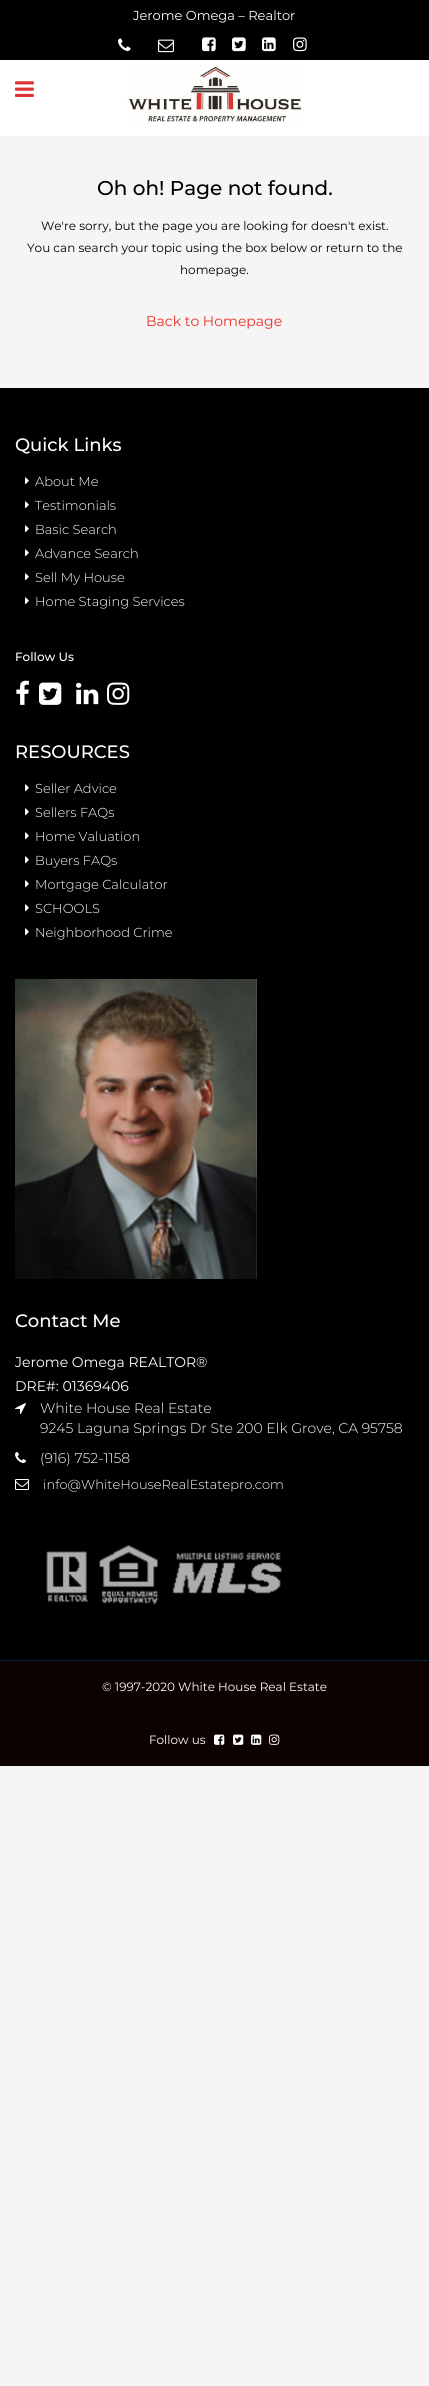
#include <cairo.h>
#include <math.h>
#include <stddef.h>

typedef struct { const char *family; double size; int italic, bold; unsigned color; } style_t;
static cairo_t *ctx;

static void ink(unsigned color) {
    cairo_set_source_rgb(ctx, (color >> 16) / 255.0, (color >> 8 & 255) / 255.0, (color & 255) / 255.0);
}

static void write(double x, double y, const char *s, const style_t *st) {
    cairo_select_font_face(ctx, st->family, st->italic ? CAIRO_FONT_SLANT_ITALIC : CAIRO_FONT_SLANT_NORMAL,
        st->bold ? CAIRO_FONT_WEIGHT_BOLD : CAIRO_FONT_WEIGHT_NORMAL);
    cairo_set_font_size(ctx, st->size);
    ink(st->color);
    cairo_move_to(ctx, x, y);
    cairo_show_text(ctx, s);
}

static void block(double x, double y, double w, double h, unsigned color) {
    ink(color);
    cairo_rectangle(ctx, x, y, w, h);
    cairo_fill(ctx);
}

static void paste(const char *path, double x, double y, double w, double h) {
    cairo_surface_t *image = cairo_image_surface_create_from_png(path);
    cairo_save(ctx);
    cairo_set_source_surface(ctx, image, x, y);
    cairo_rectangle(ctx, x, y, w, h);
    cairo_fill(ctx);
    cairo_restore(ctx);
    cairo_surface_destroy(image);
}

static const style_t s1 = {"Montserrat", 13, 0, 0, 0xffffff};
static const style_t s2 = {"Montserrat Medium", 20, 0, 0, 0x000000};
static const style_t s3 = {"Montserrat", 12, 0, 0, 0x000000};
static const style_t s4 = {"Montserrat", 14, 0, 0, 0xee2e23};
static const style_t s5 = {"Montserrat Medium", 18, 0, 0, 0xffffff};
static const style_t s6 = {"Montserrat Light", 13, 0, 0, 0xffffff};
static const style_t s7 = {"Montserrat Medium", 12, 0, 0, 0xffffff};
static const style_t s8 = {"Montserrat", 14, 0, 0, 0xffffff};
static const style_t s9 = {"Montserrat Light", 14, 0, 0, 0xffffff};
static const style_t s10 = {"Montserrat", 12, 0, 0, 0xffffff};

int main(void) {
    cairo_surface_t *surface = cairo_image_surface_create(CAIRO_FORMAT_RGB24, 429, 2386);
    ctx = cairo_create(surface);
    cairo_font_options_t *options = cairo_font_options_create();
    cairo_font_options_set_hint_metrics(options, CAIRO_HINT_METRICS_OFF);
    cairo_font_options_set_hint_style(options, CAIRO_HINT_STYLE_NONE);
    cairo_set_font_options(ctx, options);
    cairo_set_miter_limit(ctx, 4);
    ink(0xf5f5f5);
    cairo_paint(ctx);
    block(0, 0, 429, 60, 0x000000);
    write(133, 20, "Jerome Omega – Realtor", &s1);
    paste("pic1.png", 118, 38, 13, 13);
    paste("pic2.png", 158, 39, 16, 14);
    paste("pic3.png", 202, 37, 14, 15);
    paste("pic4.png", 232, 37, 14, 15);
    paste("pic5.png", 262, 37, 14, 15);
    paste("pic6.png", 293, 37, 14, 15);
    block(0, 60, 429, 76, 0xffffff);
    paste("pic7.png", 15, 81, 19, 16);
    paste("pic8.png", 127, 65, 175, 58);
    write(97, 195, "Oh oh! Page not found.", &s2);
    write(41, 230, "We're sorry, but the page you are looking for doesn't exist.", &s3);
    write(27, 252, "You can search your topic using the box below or return to the", &s3);
    write(180, 274, "homepage.", &s3);
    write(146, 326, "Back to Homepage", &s4);
    block(0, 388, 429, 1272, 0x000000);
    write(15, 451, "Quick Links", &s5);
    paste("pic9.png", 25, 477, 4, 8);
    write(35, 486, "About Me", &s6);
    paste("pic9.png", 25, 501, 4, 8);
    write(35, 510, "Testimonials", &s6);
    paste("pic9.png", 25, 525, 4, 8);
    write(35, 534, "Basic Search", &s6);
    paste("pic9.png", 25, 549, 4, 8);
    write(35, 558, "Advance Search", &s6);
    paste("pic9.png", 25, 573, 4, 8);
    write(35, 582, "Sell My House", &s6);
    paste("pic9.png", 25, 597, 4, 8);
    write(35, 606, "Home Staging Services", &s6);
    write(15, 661, "Follow Us", &s7);
    paste("pic10.png", 16, 680, 13, 25);
    paste("pic11.png", 39, 682, 23, 23);
    paste("pic12.png", 76, 682, 23, 23);
    paste("pic13.png", 107, 682, 23, 23);
    write(15, 758, "RESOURCES", &s5);
    paste("pic9.png", 25, 784, 4, 8);
    write(35, 793, "Seller Advice", &s6);
    paste("pic9.png", 25, 808, 4, 8);
    write(35, 817, "Sellers FAQs", &s6);
    paste("pic9.png", 25, 832, 4, 8);
    write(35, 841, "Home Valuation", &s6);
    paste("pic9.png", 25, 856, 4, 8);
    write(35, 865, "Buyers FAQs", &s6);
    paste("pic9.png", 25, 880, 4, 8);
    write(35, 889, "Mortgage Calculator", &s6);
    paste("pic9.png", 25, 904, 4, 8);
    write(35, 913, "SCHOOLS", &s6);
    paste("pic9.png", 25, 928, 4, 8);
    write(35, 937, "Neighborhood Crime", &s6);
    paste("pic14.png", 15, 979, 242, 300);
    write(15, 1327, "Contact Me", &s5);
    write(15, 1367, "Jerome Omega REALTOR®", &s8);
    write(15, 1391, "DRE#: 01369406", &s8);
    paste("pic15.png", 15, 1403, 11, 11);
    write(40, 1413, "White House Real Estate", &s9);
    write(40, 1433, "9245 Laguna Springs Dr Ste 200 Elk Grove, CA 95758", &s9);
    paste("pic16.png", 15, 1452, 11, 11);
    write(40, 1463, "(916) 752-1158", &s9);
    paste("pic17.png", 15, 1479, 14, 11);
    write(43, 1489, "info@WhiteHouseRealEstatepro.com", &s6);
    paste("pic18.png", 46, 1545, 236, 60);
    block(0, 1661, 429, 105, 0x0c0000);
    block(0, 1660, 429, 1, 0x00243f);
    write(102, 1691, "© 1997-2020 White House Real Estate", &s10);
    write(149, 1744, "Follow us", &s10);
    paste("pic19.png", 214, 1734, 11, 11);
    paste("pic20.png", 233, 1734, 11, 11);
    paste("pic21.png", 251, 1734, 11, 11);
    paste("pic22.png", 269, 1734, 11, 11);
    cairo_surface_write_to_png(surface, "screenshot.png");
    cairo_font_options_destroy(options);
    cairo_destroy(ctx);
    cairo_surface_destroy(surface);
    return 0;
}
